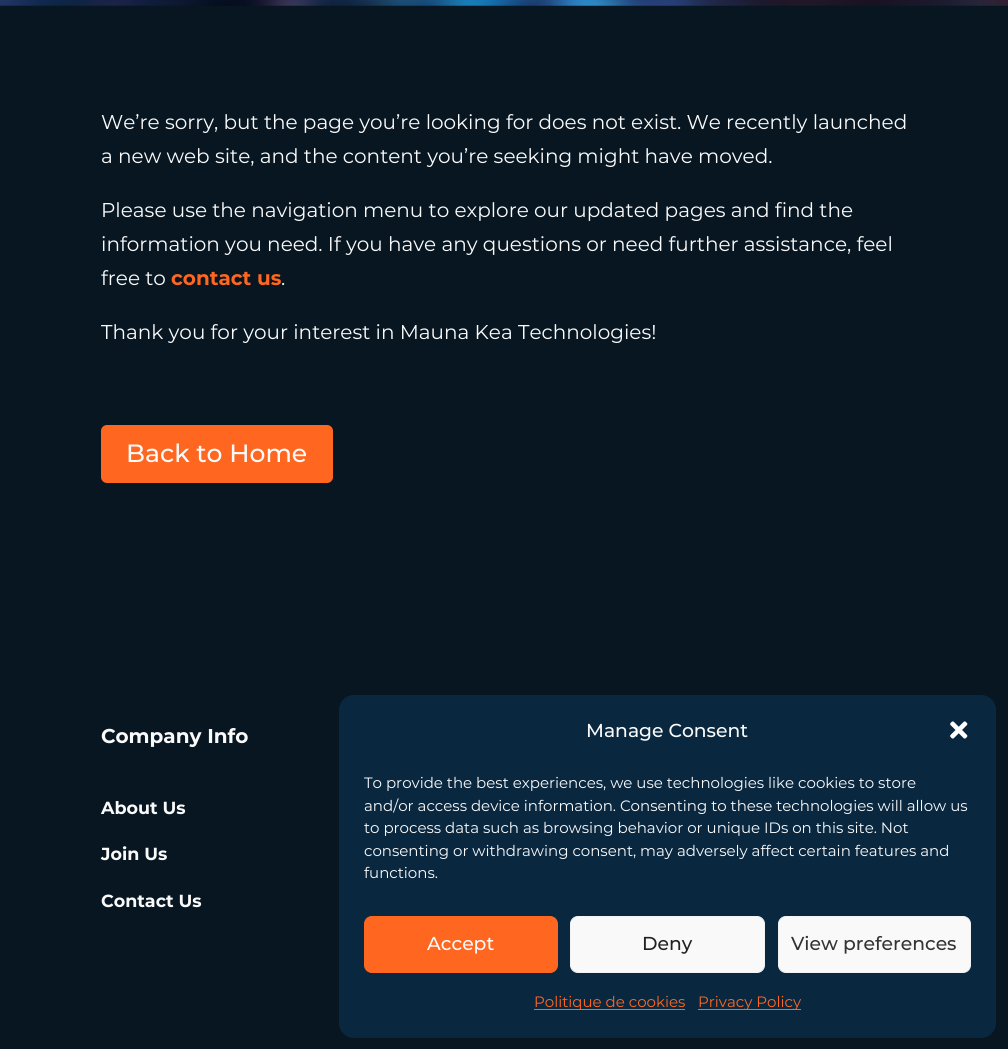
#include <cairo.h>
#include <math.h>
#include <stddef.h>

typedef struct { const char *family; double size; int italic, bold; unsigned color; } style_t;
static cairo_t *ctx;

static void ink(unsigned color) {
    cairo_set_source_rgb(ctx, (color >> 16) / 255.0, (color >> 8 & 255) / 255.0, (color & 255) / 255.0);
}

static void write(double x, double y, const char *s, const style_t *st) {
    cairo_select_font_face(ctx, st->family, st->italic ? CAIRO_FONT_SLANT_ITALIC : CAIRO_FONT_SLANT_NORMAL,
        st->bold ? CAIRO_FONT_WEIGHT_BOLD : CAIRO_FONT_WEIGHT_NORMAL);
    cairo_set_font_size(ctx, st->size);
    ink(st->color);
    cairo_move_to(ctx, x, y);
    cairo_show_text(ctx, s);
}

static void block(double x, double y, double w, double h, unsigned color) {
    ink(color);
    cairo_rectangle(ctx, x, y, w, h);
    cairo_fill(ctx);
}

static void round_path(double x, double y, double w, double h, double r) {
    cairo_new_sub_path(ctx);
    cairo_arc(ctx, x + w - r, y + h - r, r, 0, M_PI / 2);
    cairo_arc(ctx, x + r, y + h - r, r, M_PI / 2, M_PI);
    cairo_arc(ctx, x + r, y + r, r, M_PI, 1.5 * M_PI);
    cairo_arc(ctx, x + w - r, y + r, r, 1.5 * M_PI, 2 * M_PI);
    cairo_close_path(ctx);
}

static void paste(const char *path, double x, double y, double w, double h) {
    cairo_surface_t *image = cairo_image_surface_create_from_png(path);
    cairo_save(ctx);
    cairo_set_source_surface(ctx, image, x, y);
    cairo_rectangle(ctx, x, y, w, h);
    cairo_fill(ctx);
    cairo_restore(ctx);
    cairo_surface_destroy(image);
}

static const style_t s1 = {"Montserrat", 20, 0, 0, 0xfafafa};
static const style_t s2 = {"Montserrat", 20, 0, 1, 0xff6720};
static const style_t s3 = {"Montserrat Medium", 25, 0, 0, 0xfafafa};
static const style_t s4 = {"Montserrat", 20, 0, 1, 0xfafafa};
static const style_t s5 = {"Montserrat", 17.5, 0, 1, 0xfafafa};
static const style_t s6 = {"Montserrat Medium", 18.75, 0, 0, 0xfafafa};
static const style_t s7 = {"Montserrat", 15, 0, 0, 0xfafafa};
static const style_t s8 = {"Montserrat Medium", 18.75, 0, 0, 0x222222};
static const style_t s9 = {"Montserrat Medium", 18.75, 0, 0, 0x333333};
static const style_t s10 = {"Montserrat", 15, 0, 0, 0xff6720};

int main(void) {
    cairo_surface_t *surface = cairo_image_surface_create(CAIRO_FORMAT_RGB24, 1008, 1049);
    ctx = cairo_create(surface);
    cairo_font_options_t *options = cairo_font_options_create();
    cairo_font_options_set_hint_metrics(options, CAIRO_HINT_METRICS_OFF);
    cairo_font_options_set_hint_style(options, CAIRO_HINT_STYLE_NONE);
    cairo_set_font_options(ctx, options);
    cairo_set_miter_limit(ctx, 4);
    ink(0x071621);
    cairo_paint(ctx);
    paste("pic1.png", 0, 0, 1008, 6);
    write(101, 129, "We’re sorry, but the page you’re looking for does not exist. We recently launched", &s1);
    write(101, 163, "a new web site, and the content you’re seeking might have moved.", &s1);
    write(101, 217, "Please use the navigation menu to explore our updated pages and find the", &s1);
    write(101, 251, "information you need. If you have any questions or need further assistance, feel", &s1);
    write(101, 285, "free to", &s1);
    write(171, 285, "contact us", &s2);
    write(281, 285, ".", &s1);
    write(101, 339, "Thank you for your interest in Mauna Kea Technologies!", &s1);
    ink(0xff6720);
    round_path(101, 425, 232, 58, 6);
    cairo_fill(ctx);
    write(126, 462, "Back to Home", &s3);
    write(101, 743, "Company Info", &s4);
    write(101, 814, "About Us", &s5);
    write(101, 860, "Join Us", &s5);
    write(101, 907, "Contact Us", &s5);
    ink(0x092840);
    round_path(339, 695, 657, 343, 15);
    cairo_fill(ctx);
    write(586, 737, "Manage Consent", &s6);
    paste("pic2.png", 950, 721, 18, 18);
    write(364, 788, "To provide the best experiences, we use technologies like cookies to store", &s7);
    write(364, 811, "and/or access device information. Consenting to these technologies will allow us", &s7);
    write(364, 833, "to process data such as browsing behavior or unique IDs on this site. Not", &s7);
    write(364, 856, "consenting or withdrawing consent, may adversely affect certain features and", &s7);
    write(364, 878, "functions.", &s7);
    ink(0xff6720);
    round_path(364.5, 916.5, 193, 56, 7.5);
    cairo_fill_preserve(ctx);
    cairo_set_line_width(ctx, 1);
    cairo_stroke(ctx);
    write(427, 950, "Accept", &s6);
    ink(0xf9f9f9);
    round_path(570.5, 916.5, 194, 56, 7.5);
    cairo_fill_preserve(ctx);
    ink(0xf2f2f2);
    cairo_stroke(ctx);
    write(642, 950, "Deny", &s8);
    ink(0xf9f9f9);
    round_path(778.5, 916.5, 192, 56, 7.5);
    cairo_fill_preserve(ctx);
    ink(0xf2f2f2);
    cairo_stroke(ctx);
    write(791, 950, "View preferences", &s9);
    block(534, 1009, 151, 1, 0xff6720);
    write(534, 1007, "Politique de cookies", &s10);
    block(698, 1009, 103, 1, 0xff6720);
    write(698, 1007, "Privacy Policy", &s10);
    cairo_surface_write_to_png(surface, "screenshot.png");
    cairo_font_options_destroy(options);
    cairo_destroy(ctx);
    cairo_surface_destroy(surface);
    return 0;
}
